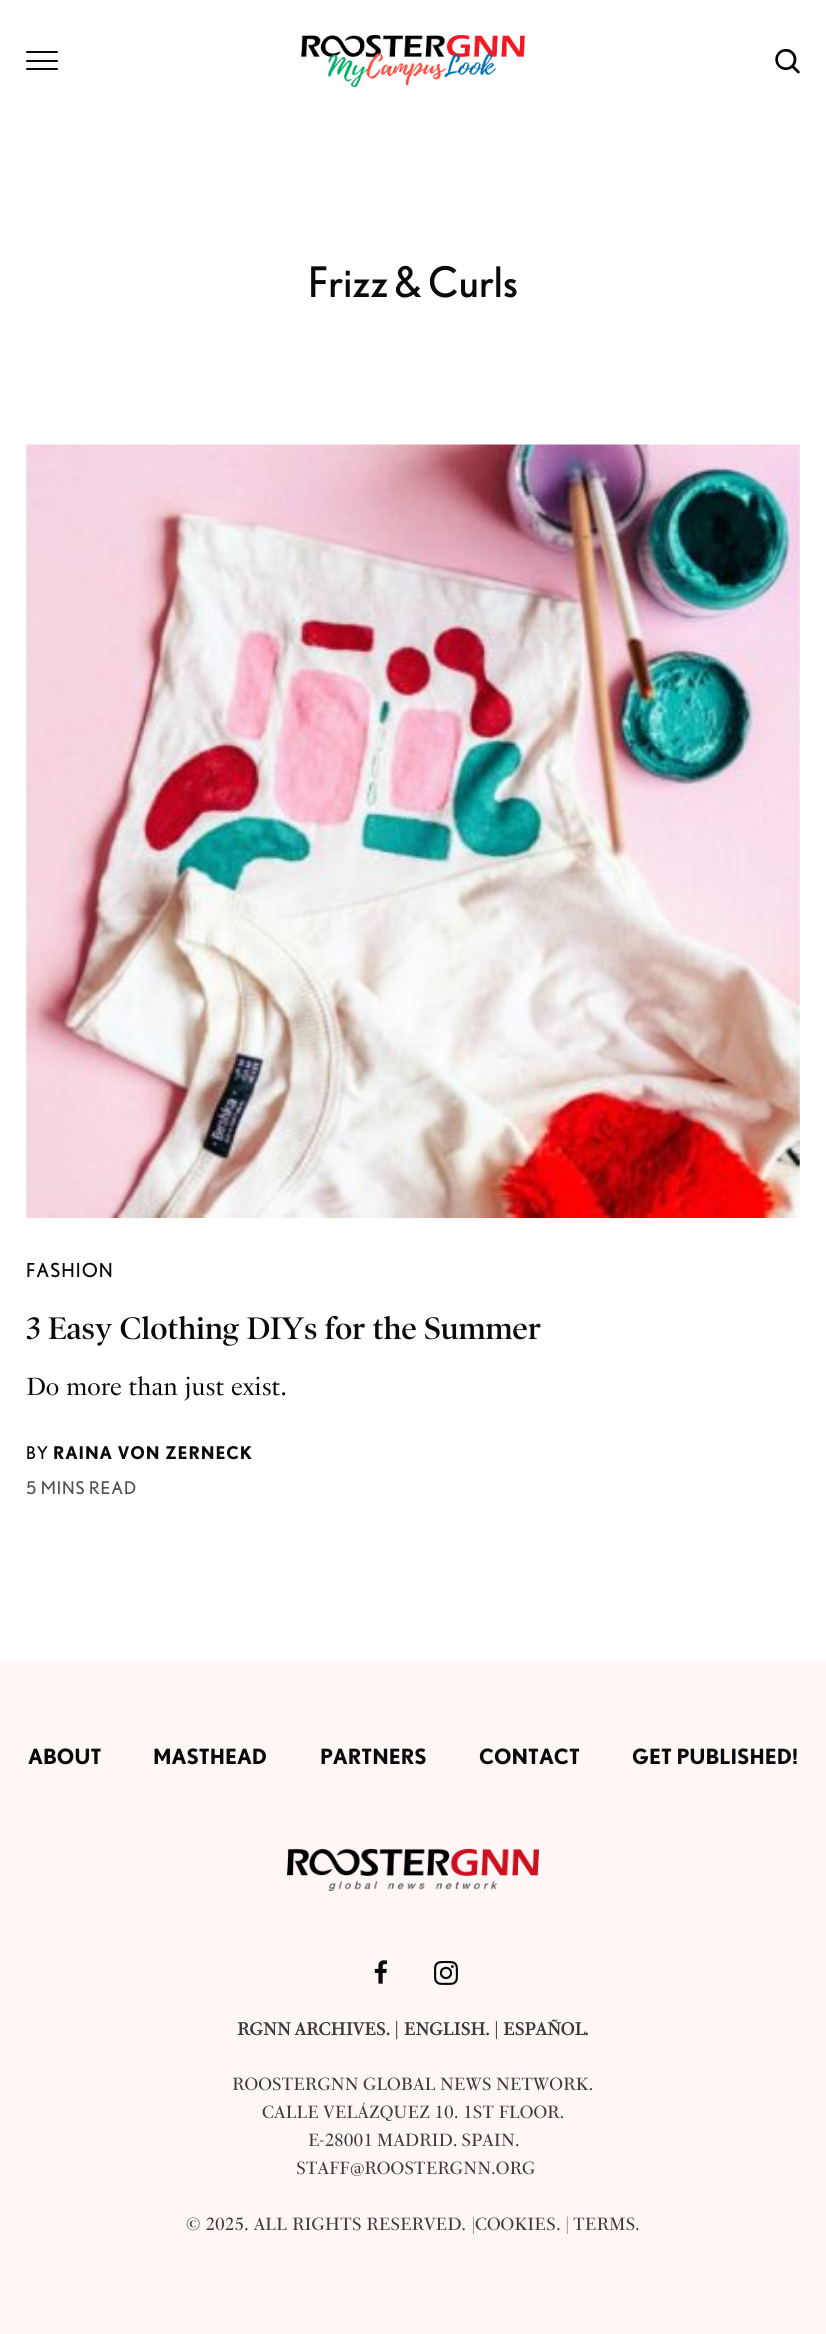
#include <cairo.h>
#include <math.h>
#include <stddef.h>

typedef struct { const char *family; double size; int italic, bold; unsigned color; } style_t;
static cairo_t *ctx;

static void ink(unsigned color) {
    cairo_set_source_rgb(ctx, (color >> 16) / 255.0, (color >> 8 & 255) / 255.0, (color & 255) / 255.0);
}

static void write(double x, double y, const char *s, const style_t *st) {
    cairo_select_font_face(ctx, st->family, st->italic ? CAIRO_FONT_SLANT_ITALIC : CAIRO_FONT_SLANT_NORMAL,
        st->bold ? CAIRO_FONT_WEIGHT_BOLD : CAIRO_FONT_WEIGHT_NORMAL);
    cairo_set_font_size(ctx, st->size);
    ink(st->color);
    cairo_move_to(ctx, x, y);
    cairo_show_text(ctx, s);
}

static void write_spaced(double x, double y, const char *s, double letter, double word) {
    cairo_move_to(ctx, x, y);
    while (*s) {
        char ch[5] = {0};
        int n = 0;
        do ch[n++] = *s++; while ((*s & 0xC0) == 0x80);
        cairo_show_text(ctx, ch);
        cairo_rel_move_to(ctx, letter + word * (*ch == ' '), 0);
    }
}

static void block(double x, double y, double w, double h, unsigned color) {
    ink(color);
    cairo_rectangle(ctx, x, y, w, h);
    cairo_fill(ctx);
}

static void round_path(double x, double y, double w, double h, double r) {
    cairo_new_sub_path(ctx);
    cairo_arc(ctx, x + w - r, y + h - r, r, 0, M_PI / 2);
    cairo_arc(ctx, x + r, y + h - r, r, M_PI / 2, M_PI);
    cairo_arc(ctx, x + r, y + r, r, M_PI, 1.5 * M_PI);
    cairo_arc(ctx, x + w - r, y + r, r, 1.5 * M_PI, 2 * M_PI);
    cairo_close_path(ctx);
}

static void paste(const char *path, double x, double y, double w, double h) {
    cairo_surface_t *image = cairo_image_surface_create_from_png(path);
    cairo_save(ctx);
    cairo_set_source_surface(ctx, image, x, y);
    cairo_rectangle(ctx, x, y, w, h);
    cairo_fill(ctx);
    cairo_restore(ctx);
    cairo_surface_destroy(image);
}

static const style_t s1 = {"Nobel", 42, 0, 0, 0x0a0a0a};
static const style_t s2 = {"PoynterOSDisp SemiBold", 31.5, 0, 0, 0x0a0a0a};
static const style_t s3 = {"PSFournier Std", 24.5, 0, 0, 0x0a0a0a};
static const style_t s4 = {"Nobel", 21, 0, 1, 0x0a0a0a};
static const style_t s5 = {"PSFournier Std", 17.5, 0, 1, 0x3b3939};
static const style_t s6 = {"PSFournier Std", 17.5, 0, 0, 0x3b3939};

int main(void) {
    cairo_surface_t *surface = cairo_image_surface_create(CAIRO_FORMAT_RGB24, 826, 2334);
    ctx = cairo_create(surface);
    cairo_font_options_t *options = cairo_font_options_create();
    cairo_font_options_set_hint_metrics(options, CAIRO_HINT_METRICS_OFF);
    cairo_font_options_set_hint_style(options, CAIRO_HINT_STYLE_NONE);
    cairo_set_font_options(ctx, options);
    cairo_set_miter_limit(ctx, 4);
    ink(0xffffff);
    cairo_paint(ctx);
    ink(0x0a0a0a);
    round_path(26, 51, 32, 2, 1);
    cairo_fill(ctx);
    round_path(26, 60, 32, 2, 1);
    cairo_fill(ctx);
    round_path(26, 68, 32, 2, 1);
    cairo_fill(ctx);
    paste("pic1.png", 301, 35, 224, 53);
    paste("pic2.png", 775, 49, 25, 25);
    write(308, 297, "Frizz & Curls", &s1);
    paste("pic3.png", 26, 444, 774, 774);
    cairo_set_font_size(ctx, 19.25);
    write_spaced(26, 1277, "FASHION", 1, 0);
    write(26, 1339, "3 Easy Clothing DIYs for the Summer", &s2);
    write(26, 1395, "Do more than just exist.", &s3);
    cairo_select_font_face(ctx, "Nobel", CAIRO_FONT_SLANT_NORMAL, CAIRO_FONT_WEIGHT_NORMAL);
    cairo_set_font_size(ctx, 17.5);
    write_spaced(26, 1459, "BY", 0.9, 0);
    cairo_select_font_face(ctx, "Nobel", CAIRO_FONT_SLANT_NORMAL, CAIRO_FONT_WEIGHT_BOLD);
    write_spaced(53, 1459, "RAINA VON ZERNECK", 0.9, 0);
    cairo_select_font_face(ctx, "Nobel", CAIRO_FONT_SLANT_NORMAL, CAIRO_FONT_WEIGHT_NORMAL);
    ink(0x545454);
    write_spaced(26, 1494, "5 MINS READ", 0.9, 0);
    block(0, 1661, 826, 673, 0xfff6f6);
    write(28, 1764, "ABOUT", &s4);
    write(153, 1764, "MASTHEAD", &s4);
    write(320, 1764, "PARTNERS", &s4);
    write(479, 1764, "CONTACT", &s4);
    write(632, 1764, "GET PUBLISHED!", &s4);
    paste("pic4.png", 287, 1848, 252, 43);
    paste("pic5.png", 374, 1960, 13, 24);
    paste("pic6.png", 434, 1960, 24, 25);
    cairo_select_font_face(ctx, "PSFournier Std", CAIRO_FONT_SLANT_NORMAL, CAIRO_FONT_WEIGHT_BOLD);
    cairo_set_font_size(ctx, 17.5);
    ink(0x3b3939);
    write_spaced(237, 2035, "RGNN ARCHIVES.", 0, -1);
    write(394, 2035, "| ENGLISH", &s5);
    write_spaced(485, 2035, ". |", 0, -1);
    write(503, 2035, "ESPAÑOL", &s5);
    write(584, 2035, ".", &s5);
    cairo_select_font_face(ctx, "PSFournier Std", CAIRO_FONT_SLANT_NORMAL, CAIRO_FONT_WEIGHT_NORMAL);
    write_spaced(232, 2090, "ROOSTERGNN GLOBAL NEWS NETWORK.", 0, -0.5);
    write_spaced(262, 2118, "CALLE VELÁZQUEZ 10. 1ST FLOOR.", 0, -0.5);
    write_spaced(308, 2146, "E-28001 MADRID. SPAIN.", 0, -1);
    write(296, 2174, "STAFF@ROOSTERGNN.ORG", &s6);
    write(186, 2230, "© 2025. ALL RIGHTS RESERVED. |", &s6);
    write(475, 2230, "COOKIES", &s6);
    write_spaced(556, 2230, ". |", 0, -1);
    write(573, 2230, "TERMS", &s6);
    write(635, 2230, ".", &s6);
    cairo_surface_write_to_png(surface, "screenshot.png");
    cairo_font_options_destroy(options);
    cairo_destroy(ctx);
    cairo_surface_destroy(surface);
    return 0;
}
